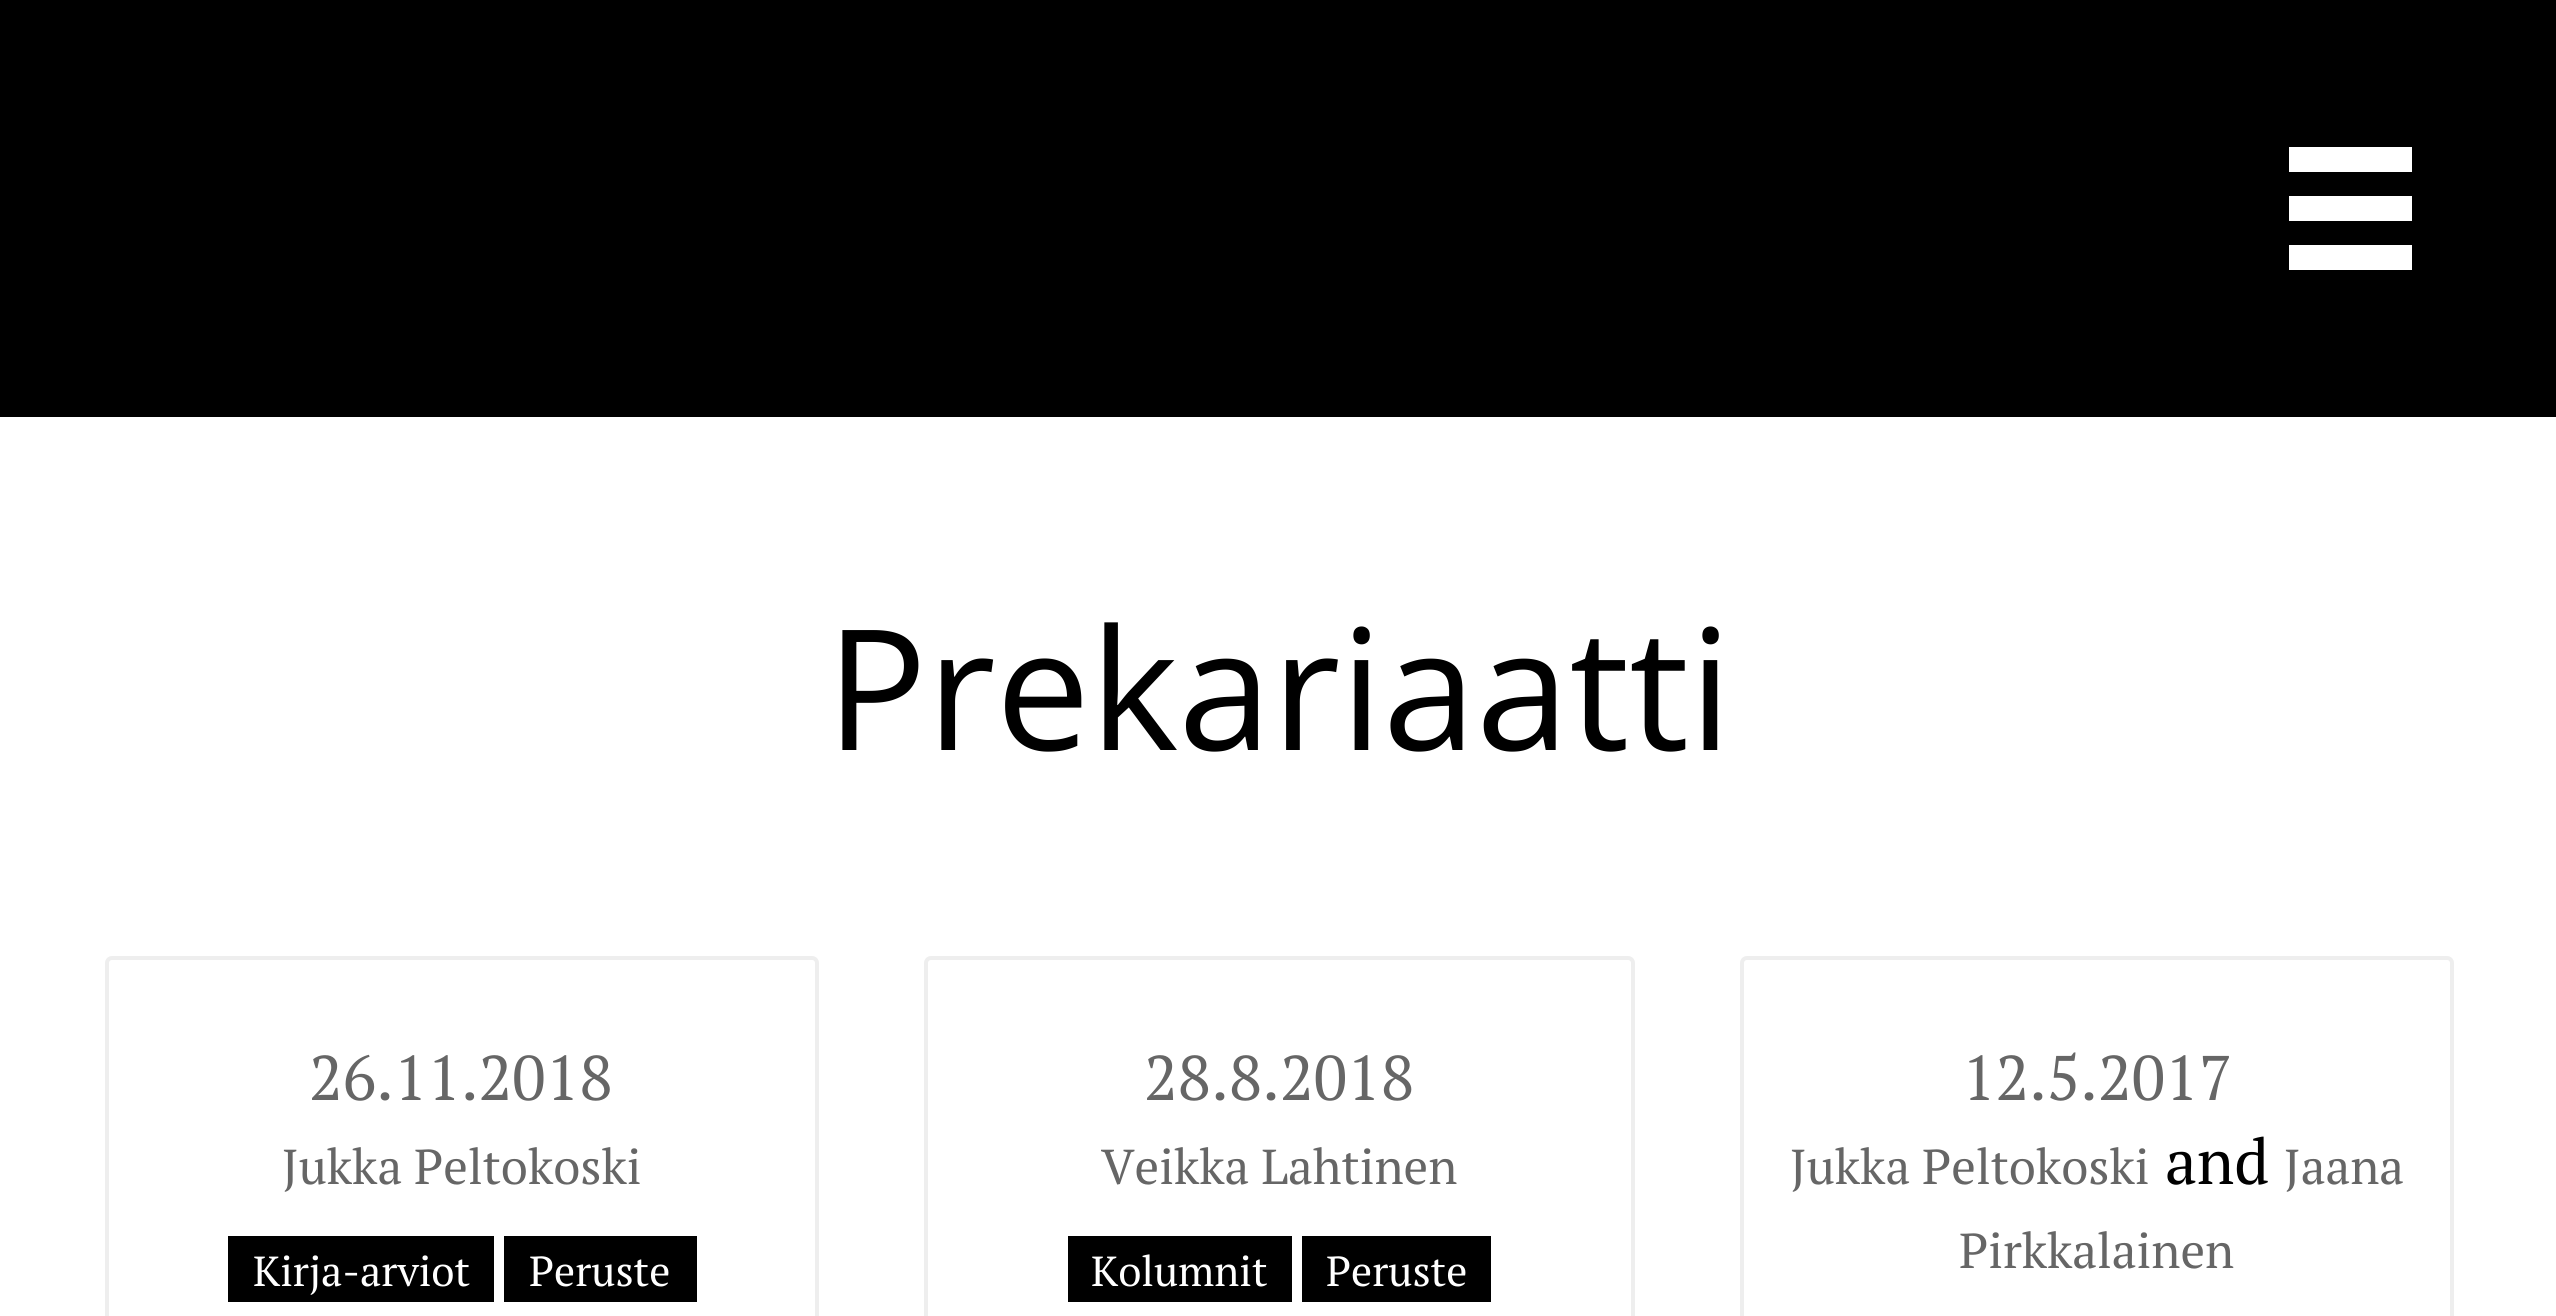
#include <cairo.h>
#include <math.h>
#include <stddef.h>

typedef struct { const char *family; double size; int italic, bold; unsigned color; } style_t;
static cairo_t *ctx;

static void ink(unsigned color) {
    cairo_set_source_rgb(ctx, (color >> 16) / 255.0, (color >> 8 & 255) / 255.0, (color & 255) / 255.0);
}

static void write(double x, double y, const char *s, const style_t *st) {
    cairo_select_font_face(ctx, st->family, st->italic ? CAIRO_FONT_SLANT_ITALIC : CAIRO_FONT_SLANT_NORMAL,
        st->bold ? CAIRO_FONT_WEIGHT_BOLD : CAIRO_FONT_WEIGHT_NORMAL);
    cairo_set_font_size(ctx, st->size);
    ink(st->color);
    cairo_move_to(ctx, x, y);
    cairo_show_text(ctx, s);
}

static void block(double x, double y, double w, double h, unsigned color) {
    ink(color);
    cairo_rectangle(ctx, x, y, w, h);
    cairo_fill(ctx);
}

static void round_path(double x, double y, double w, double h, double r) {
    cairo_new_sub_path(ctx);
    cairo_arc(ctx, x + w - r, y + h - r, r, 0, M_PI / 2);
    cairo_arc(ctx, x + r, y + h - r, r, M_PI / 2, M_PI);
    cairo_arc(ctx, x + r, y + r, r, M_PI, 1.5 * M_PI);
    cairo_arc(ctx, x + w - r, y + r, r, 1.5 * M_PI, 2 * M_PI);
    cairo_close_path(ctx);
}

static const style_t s1 = {"Open Sans", 168, 0, 0, 0x000000};
static const style_t s2 = {"PT Serif", 63, 0, 0, 0x666666};
static const style_t s3 = {"PT Serif", 49, 0, 0, 0x666666};
static const style_t s4 = {"PT Serif", 42, 0, 0, 0xffffff};
static const style_t s5 = {"PT Serif", 63, 0, 0, 0x000000};

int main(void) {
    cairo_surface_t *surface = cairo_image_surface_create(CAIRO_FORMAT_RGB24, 2556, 1316);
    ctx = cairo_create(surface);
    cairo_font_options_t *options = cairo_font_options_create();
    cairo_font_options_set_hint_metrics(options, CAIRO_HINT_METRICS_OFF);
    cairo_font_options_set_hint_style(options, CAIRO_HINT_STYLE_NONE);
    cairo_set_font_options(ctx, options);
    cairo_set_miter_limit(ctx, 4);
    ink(0xffffff);
    cairo_paint(ctx);
    block(0, 0, 2556, 417, 0x000000);
    block(2289, 147, 123, 25, 0xffffff);
    block(2289, 196, 123, 25, 0xffffff);
    block(2289, 245, 123, 25, 0xffffff);
    write(826, 750, "Prekariaatti", &s1);
    round_path(107, 958, 710, 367, 5);
    ink(0xeeeeee);
    cairo_set_line_width(ctx, 4);
    cairo_stroke(ctx);
    write(309, 1100, "26.11.2018", &s2);
    write(282, 1184, "Jukka Peltokoski", &s3);
    block(228, 1236, 266, 66, 0x000000);
    write(253, 1286, "Kirja-arviot", &s4);
    block(504, 1236, 193, 66, 0x000000);
    write(529, 1286, "Peruste", &s4);
    round_path(926, 958, 707, 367, 5);
    ink(0xeeeeee);
    cairo_stroke(ctx);
    write(1144, 1100, "28.8.2018", &s2);
    write(1101, 1184, "Veikka Lahtinen", &s3);
    block(1068, 1236, 224, 66, 0x000000);
    write(1091, 1286, "Kolumnit", &s4);
    block(1302, 1236, 189, 66, 0x000000);
    write(1326, 1286, "Peruste", &s4);
    round_path(1742, 958, 710, 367, 5);
    ink(0xeeeeee);
    cairo_stroke(ctx);
    write(1962, 1100, "12.5.2017", &s2);
    write(1790, 1184, "Jukka Peltokoski", &s3);
    write(2165, 1184, "and", &s5);
    write(2284, 1184, "Jaana", &s3);
    write(1959, 1268, "Pirkkalainen", &s3);
    cairo_surface_write_to_png(surface, "screenshot.png");
    cairo_font_options_destroy(options);
    cairo_destroy(ctx);
    cairo_surface_destroy(surface);
    return 0;
}
